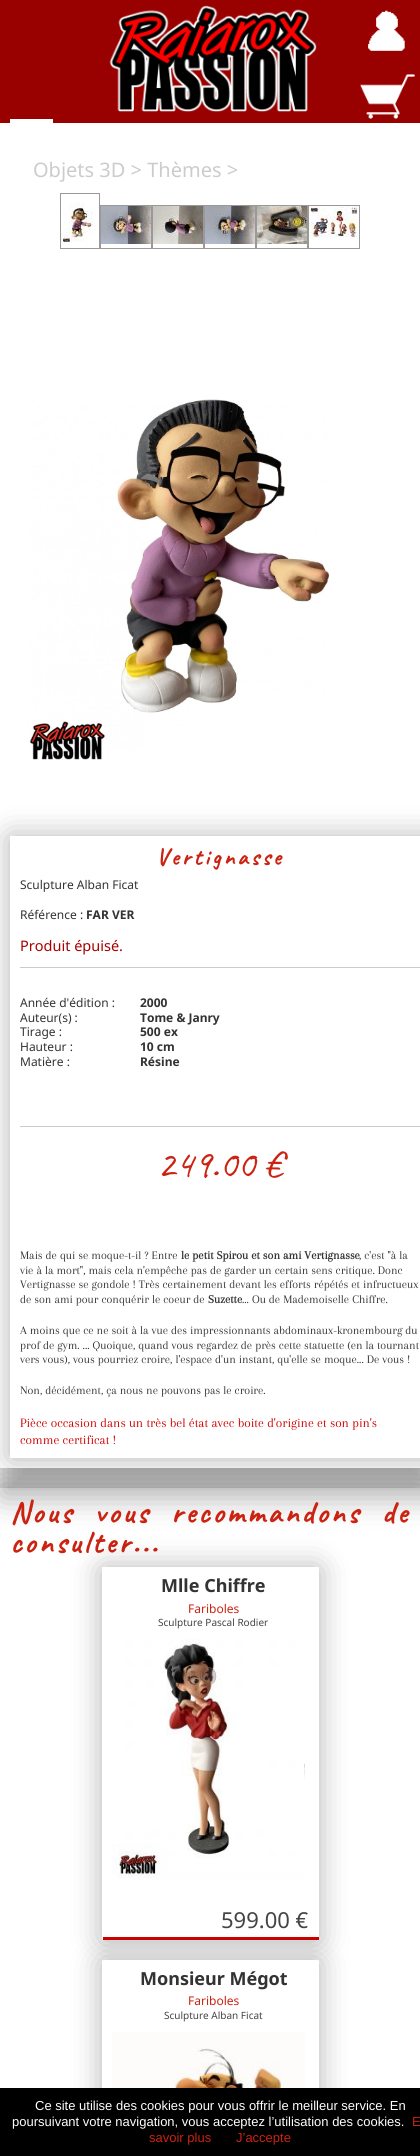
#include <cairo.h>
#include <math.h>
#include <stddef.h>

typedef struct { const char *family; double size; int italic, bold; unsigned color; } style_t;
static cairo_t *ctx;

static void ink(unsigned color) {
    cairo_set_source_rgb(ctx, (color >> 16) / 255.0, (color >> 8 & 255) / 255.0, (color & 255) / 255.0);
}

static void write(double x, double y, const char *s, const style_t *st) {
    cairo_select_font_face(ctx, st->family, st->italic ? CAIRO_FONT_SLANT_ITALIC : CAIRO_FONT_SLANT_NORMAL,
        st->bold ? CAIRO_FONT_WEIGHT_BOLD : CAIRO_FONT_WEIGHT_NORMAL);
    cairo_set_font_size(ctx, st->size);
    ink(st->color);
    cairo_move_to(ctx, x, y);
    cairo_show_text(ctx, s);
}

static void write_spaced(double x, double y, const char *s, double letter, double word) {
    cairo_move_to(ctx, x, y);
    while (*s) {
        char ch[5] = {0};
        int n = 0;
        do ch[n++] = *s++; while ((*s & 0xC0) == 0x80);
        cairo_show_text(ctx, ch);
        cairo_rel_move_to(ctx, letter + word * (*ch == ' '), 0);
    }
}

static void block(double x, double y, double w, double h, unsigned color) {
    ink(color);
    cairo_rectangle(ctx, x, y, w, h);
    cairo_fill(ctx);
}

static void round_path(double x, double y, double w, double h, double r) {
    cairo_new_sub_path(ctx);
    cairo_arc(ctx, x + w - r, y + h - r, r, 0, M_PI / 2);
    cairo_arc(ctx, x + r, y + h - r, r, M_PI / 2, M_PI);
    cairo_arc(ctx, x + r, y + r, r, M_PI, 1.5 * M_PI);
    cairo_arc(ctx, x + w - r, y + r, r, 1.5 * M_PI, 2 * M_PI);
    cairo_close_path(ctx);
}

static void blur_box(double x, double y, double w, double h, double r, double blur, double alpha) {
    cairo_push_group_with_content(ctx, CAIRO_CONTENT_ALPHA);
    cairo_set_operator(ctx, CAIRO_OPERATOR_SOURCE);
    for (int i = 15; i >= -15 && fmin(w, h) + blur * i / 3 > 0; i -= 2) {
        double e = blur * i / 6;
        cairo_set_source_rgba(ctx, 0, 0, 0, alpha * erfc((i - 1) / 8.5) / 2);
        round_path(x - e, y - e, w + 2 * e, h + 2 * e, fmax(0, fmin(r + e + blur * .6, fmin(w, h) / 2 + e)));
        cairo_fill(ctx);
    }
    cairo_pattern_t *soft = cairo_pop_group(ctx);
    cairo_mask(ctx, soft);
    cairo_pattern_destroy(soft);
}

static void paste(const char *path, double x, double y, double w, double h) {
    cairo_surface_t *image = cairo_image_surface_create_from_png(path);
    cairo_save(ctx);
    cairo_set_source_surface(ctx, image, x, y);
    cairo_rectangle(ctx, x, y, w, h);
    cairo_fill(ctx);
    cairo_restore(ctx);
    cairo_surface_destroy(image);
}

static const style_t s1 = {"Noto Sans", 20, 0, 0, 0xcccccc};
static const style_t s2 = {"Noto Sans", 12, 0, 0, 0x333333};
static const style_t s3 = {"Noto Sans", 12, 0, 1, 0x333333};
static const style_t s4 = {"Noto Sans", 14.5, 0, 0, 0xaa0000};
static const style_t s5 = {"Caveat", 40, 0, 0, 0xcc2211};
static const style_t s6 = {"Arapey", 12, 0, 0, 0x333333};
static const style_t s7 = {"Arapey", 12, 0, 1, 0x333333};
static const style_t s8 = {"Arapey", 13.3, 0, 0, 0xcc0000};
static const style_t s9 = {"Noto Sans", 18, 0, 1, 0x333333};
static const style_t s10 = {"Noto Sans", 12, 0, 0, 0xcc2211};
static const style_t s11 = {"Noto Sans", 10, 0, 0, 0x444444};
static const style_t s12 = {"Noto Sans", 22, 0, 0, 0x444444};
static const style_t s13 = {"Liberation Sans", 13, 0, 0, 0xffffff};
static const style_t s14 = {"Liberation Sans", 13, 0, 0, 0xcc2211};

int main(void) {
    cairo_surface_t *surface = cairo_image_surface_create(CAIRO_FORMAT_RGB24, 420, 2156);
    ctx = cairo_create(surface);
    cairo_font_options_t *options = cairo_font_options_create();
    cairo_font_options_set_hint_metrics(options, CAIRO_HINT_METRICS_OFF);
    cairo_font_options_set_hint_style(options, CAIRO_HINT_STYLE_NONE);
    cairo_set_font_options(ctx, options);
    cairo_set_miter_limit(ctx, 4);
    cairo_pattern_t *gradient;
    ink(0xffffff);
    cairo_paint(ctx);
    block(0, 0, 420, 123, 0x990000);
    paste("pic1.png", 109, 5, 208, 107);
    paste("pic2.png", 368, 10, 37, 41);
    paste("pic3.png", 360, 74, 55, 45);
    block(10, 119, 43, 4, 0xffffff);
    write(33, 177, "Objets 3D > Thèmes >", &s1);
    cairo_rectangle(ctx, 60.5, 193.5, 39, 55);
    ink(0x999999);
    cairo_set_line_width(ctx, 1);
    cairo_stroke(ctx);
    paste("pic4.png", 61, 202, 33, 40);
    cairo_rectangle(ctx, 100.5, 205.5, 51, 43);
    cairo_stroke(ctx);
    paste("pic5.png", 101, 206, 50, 38);
    cairo_rectangle(ctx, 152.5, 205.5, 51, 43);
    cairo_stroke(ctx);
    paste("pic6.png", 153, 206, 50, 38);
    cairo_rectangle(ctx, 204.5, 205.5, 51, 43);
    cairo_stroke(ctx);
    paste("pic7.png", 205, 206, 50, 38);
    cairo_rectangle(ctx, 256.5, 205.5, 51, 43);
    cairo_stroke(ctx);
    paste("pic8.png", 257, 206, 50, 38);
    cairo_rectangle(ctx, 308.5, 205.5, 51, 43);
    cairo_stroke(ctx);
    paste("pic9.png", 309, 206, 49, 33);
    paste("pic10.png", 27, 399, 303, 361);
    cairo_save(ctx);
    cairo_set_fill_rule(ctx, CAIRO_FILL_RULE_EVEN_ODD);
    cairo_new_path(ctx);
    cairo_move_to(ctx, 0, 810);
    cairo_line_to(ctx, 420, 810);
    cairo_line_to(ctx, 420, 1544);
    cairo_line_to(ctx, 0, 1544);
    cairo_close_path(ctx);
    cairo_move_to(ctx, 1, 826);
    cairo_line_to(ctx, 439, 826);
    cairo_curve_to(ctx, 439.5, 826, 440, 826.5, 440, 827);
    cairo_line_to(ctx, 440, 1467);
    cairo_curve_to(ctx, 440, 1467.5, 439.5, 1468, 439, 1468);
    cairo_line_to(ctx, 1, 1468);
    cairo_curve_to(ctx, 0.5, 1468, 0, 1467.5, 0, 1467);
    cairo_line_to(ctx, 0, 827);
    cairo_curve_to(ctx, 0, 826.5, 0.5, 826, 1, 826);
    cairo_close_path(ctx);
    cairo_clip(ctx);
    ink(0x000000);
    blur_box(0, 856, 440, 642, 1, 15, 0.3);
    cairo_restore(ctx);
    cairo_save(ctx);
    cairo_rectangle(ctx, 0, 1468, 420, 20);
    cairo_clip(ctx);
    ink(0x000000);
    blur_box(0, 1489, 420, 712, 0, 15, 0.3);
    cairo_restore(ctx);
    gradient = cairo_pattern_create_linear(220, 826, 220, 1468);
    cairo_pattern_add_color_stop_rgba(gradient, 0, 1, 1, 1, 0);
    cairo_pattern_add_color_stop_rgba(gradient, 0.69, 1, 1, 1, 1);
    cairo_set_source(ctx, gradient);
    cairo_pattern_destroy(gradient);
    round_path(0, 826, 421, 642, 1);
    cairo_fill(ctx);
    cairo_save(ctx);
    cairo_set_fill_rule(ctx, CAIRO_FILL_RULE_EVEN_ODD);
    cairo_new_path(ctx);
    cairo_move_to(ctx, 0, 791);
    cairo_line_to(ctx, 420, 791);
    cairo_line_to(ctx, 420, 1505);
    cairo_line_to(ctx, 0, 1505);
    cairo_close_path(ctx);
    cairo_move_to(ctx, 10, 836);
    cairo_line_to(ctx, 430, 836);
    cairo_line_to(ctx, 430, 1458);
    cairo_line_to(ctx, 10, 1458);
    cairo_close_path(ctx);
    cairo_clip(ctx);
    ink(0x000000);
    blur_box(10, 837, 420, 622, 0, 15, 0.3);
    cairo_restore(ctx);
    cairo_select_font_face(ctx, "Caveat", CAIRO_FONT_SLANT_NORMAL, CAIRO_FONT_WEIGHT_BOLD);
    cairo_set_font_size(ctx, 24);
    ink(0xcc2211);
    write_spaced(156, 865, "Vertignasse", 3, 0);
    write(20, 889, "Sculpture Alban Ficat", &s2);
    write(20, 919, "Référence :", &s2);
    write(86, 919, "FAR VER", &s3);
    write(20, 951, "Produit épuisé.", &s4);
    block(20, 967, 400, 1, 0xcccccc);
    write(20, 1007, "Année d'édition :", &s2);
    write(140, 1007, "2000", &s3);
    write(20, 1022, "Auteur(s) :", &s2);
    write(140, 1022, "Tome & Janry", &s3);
    write(20, 1036, "Tirage :", &s2);
    write(140, 1036, "500 ex", &s3);
    write(20, 1051, "Hauteur :", &s2);
    write(140, 1051, "10 cm", &s3);
    write(20, 1066, "Matière :", &s2);
    write(140, 1066, "Résine", &s3);
    block(20, 1126, 400, 1, 0xcccccc);
    write(157, 1177, "249.00 €", &s5);
    write(20, 1259, "Mais de qui se moque-t-il ? Entre", &s6);
    write(181, 1259, "le petit Spirou et son ami Vertignasse", &s7);
    write(359, 1259, ", c'est \"à la", &s6);
    write(20, 1274, "vie à la mort\", mais cela n'empêche pas de garder un certain sens critique. Donc", &s6);
    write(20, 1288, "Vertignasse se gondole ! Très certainement devant les efforts répétés et infructueux", &s6);
    write(20, 1303, "de son ami pour conquérir le coeur de", &s6);
    write(208, 1303, "Suzette", &s7);
    write(242, 1303, "... Ou de Mademoiselle Chiffre.", &s6);
    write(20, 1334, "A moins que ce ne soit à la vue des impressionnants abdominaux-kronembourg du", &s6);
    write(20, 1349, "prof de gym. ... Quoique, quand vous regardez de près cette statuette (en la tournant", &s6);
    write(20, 1363, "vers vous), vous pourriez croire, l'espace d'un instant, qu'elle se moque... De vous !", &s6);
    write(20, 1394, "Non, décidément, ça nous ne pouvons pas le croire.", &s6);
    write(20, 1427, "Pièce occasion dans un très bel état avec boite d'origine et son pin's", &s8);
    write(20, 1444, "comme certificat !", &s8);
    cairo_select_font_face(ctx, "Caveat", CAIRO_FONT_SLANT_NORMAL, CAIRO_FONT_WEIGHT_BOLD);
    cairo_set_font_size(ctx, 31.25);
    ink(0xcc2211);
    write_spaced(10, 1523, "Nous vous recommandons de", 3, 10);
    write_spaced(10, 1553, "consulter...", 3, 0);
    ink(0x000000);
    blur_box(102, 1568, 217, 373, 1, 15, 0.3);
    ink(0xffffff);
    round_path(102, 1567, 217, 373, 1);
    cairo_fill(ctx);
    block(103, 1937, 216, 3, 0xcc0000);
    write(161, 1592, "Mlle Chiffre", &s9);
    write(188, 1613, "Fariboles", &s10);
    write(158, 1626, "Sculpture Pascal Rodier", &s11);
    paste("pic11.png", 112, 1639, 193, 240);
    ink(0x000000);
    blur_box(102, 1961, 217, 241, 1, 15, 0.3);
    block(112, 1934, 197, 2, 0xffffff);
    write(221, 1928, "599.00 €", &s12);
    ink(0xffffff);
    round_path(102, 1960, 217, 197, 1);
    cairo_fill(ctx);
    write(140, 1985, "Monsieur Mégot", &s9);
    write(188, 2005, "Fariboles", &s10);
    write(164, 2019, "Sculpture Alban Ficat", &s11);
    paste("pic12.png", 112, 2032, 193, 56);
    block(0, 2088, 420, 68, 0x000000);
    write(35, 2110, "Ce site utilise des cookies pour vous offrir le meilleur service. En", &s13);
    write(12, 2126, "poursuivant votre navigation, vous acceptez l’utilisation des cookies.", &s13);
    write(412, 2126, "E", &s14);
    write(149, 2142, "savoir plus", &s14);
    write(236, 2142, "J’accepte", &s14);
    cairo_surface_write_to_png(surface, "screenshot.png");
    cairo_font_options_destroy(options);
    cairo_destroy(ctx);
    cairo_surface_destroy(surface);
    return 0;
}
